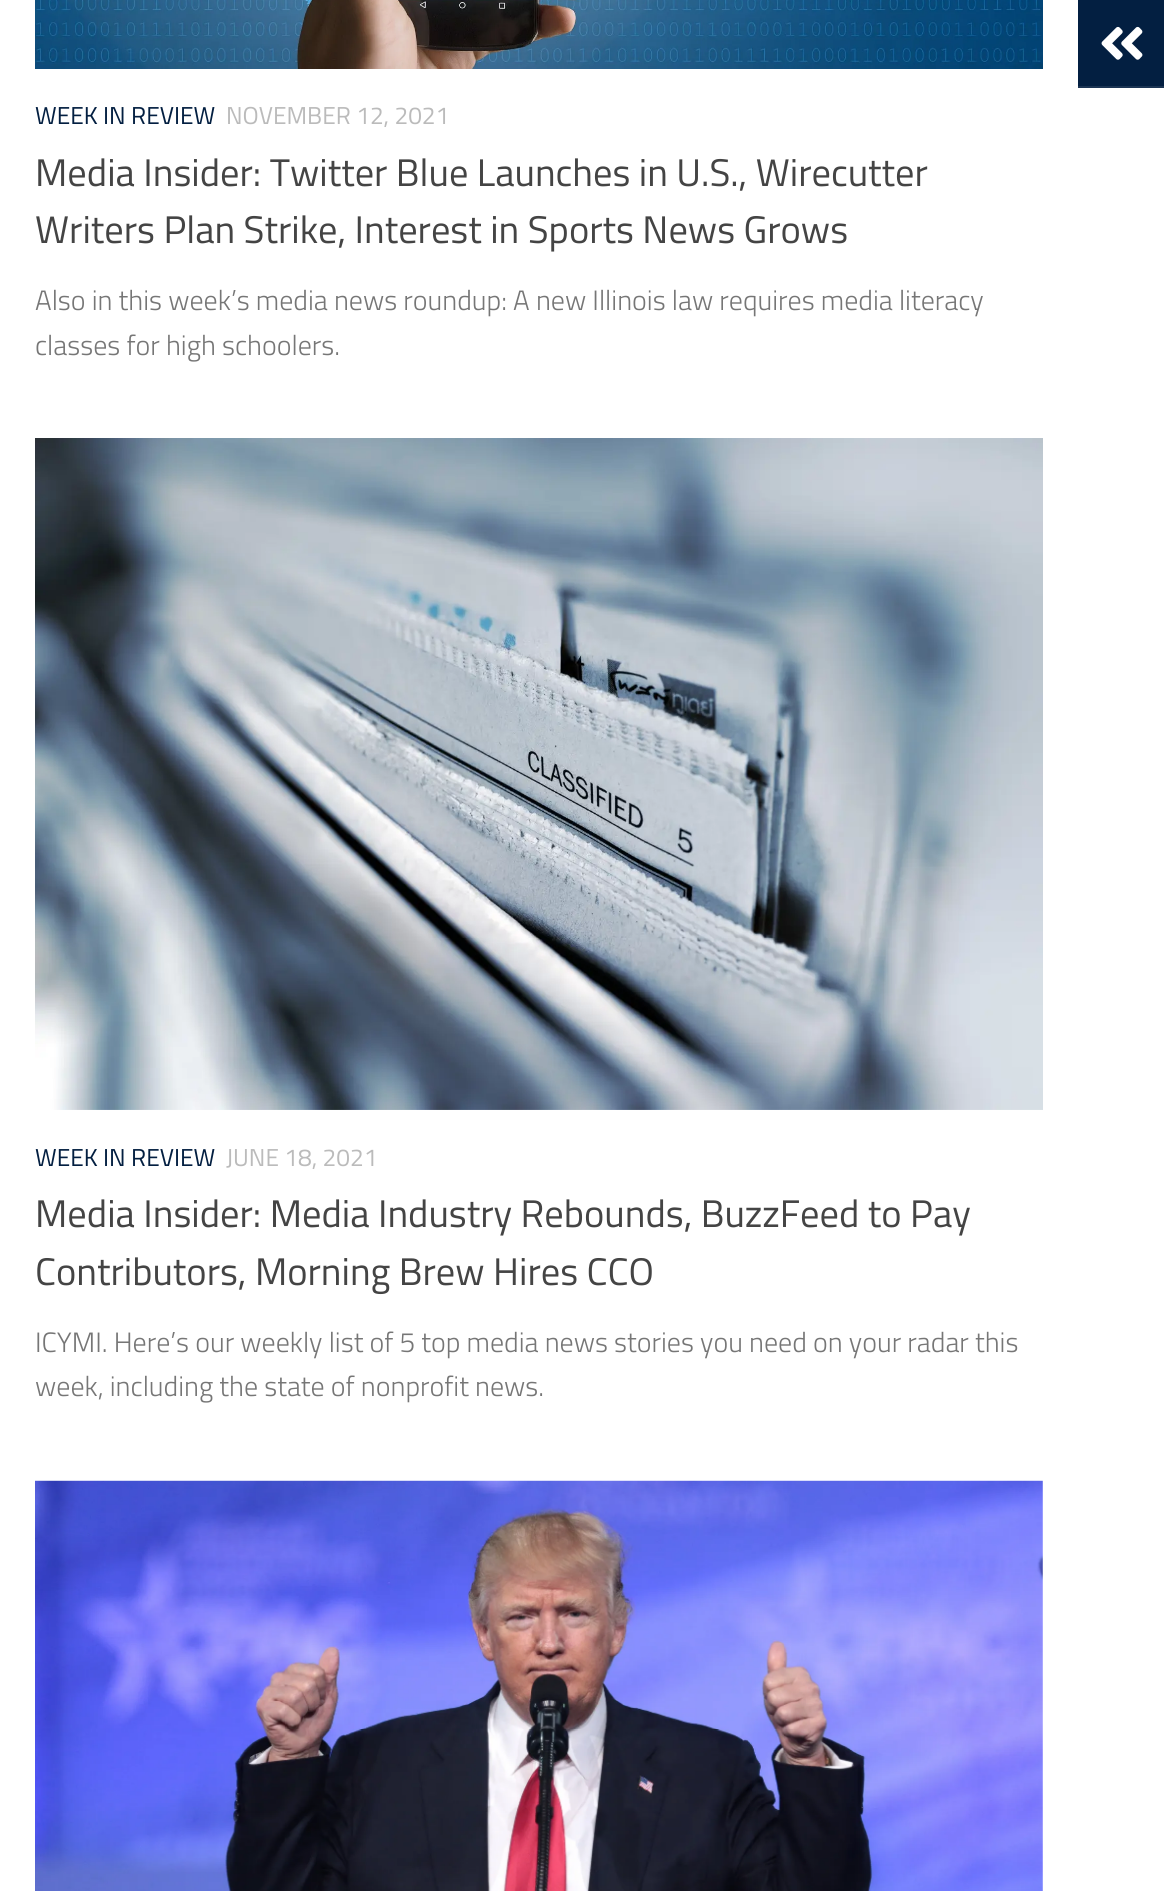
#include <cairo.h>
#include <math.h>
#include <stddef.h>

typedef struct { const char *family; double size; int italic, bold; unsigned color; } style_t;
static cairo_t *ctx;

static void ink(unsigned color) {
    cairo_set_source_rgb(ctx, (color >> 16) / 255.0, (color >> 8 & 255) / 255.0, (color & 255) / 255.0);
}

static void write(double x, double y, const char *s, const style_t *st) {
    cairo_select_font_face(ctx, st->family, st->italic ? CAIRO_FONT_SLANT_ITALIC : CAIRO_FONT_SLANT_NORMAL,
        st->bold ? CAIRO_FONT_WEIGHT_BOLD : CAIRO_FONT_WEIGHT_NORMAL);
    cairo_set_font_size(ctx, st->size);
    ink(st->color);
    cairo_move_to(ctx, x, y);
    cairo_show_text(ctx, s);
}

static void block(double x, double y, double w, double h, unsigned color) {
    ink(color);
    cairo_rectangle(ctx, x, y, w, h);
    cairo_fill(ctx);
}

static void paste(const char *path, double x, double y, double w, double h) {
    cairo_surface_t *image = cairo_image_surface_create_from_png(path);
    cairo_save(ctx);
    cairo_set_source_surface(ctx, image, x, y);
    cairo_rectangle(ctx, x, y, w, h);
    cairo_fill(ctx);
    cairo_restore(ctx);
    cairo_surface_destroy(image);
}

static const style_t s1 = {"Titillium", 24.5, 0, 0, 0x031f41};
static const style_t s2 = {"Titillium", 24.5, 0, 0, 0xbbbbbb};
static const style_t s3 = {"Titillium", 38.5, 0, 0, 0x444444};
static const style_t s4 = {"Titillium Light", 28, 0, 0, 0x767676};

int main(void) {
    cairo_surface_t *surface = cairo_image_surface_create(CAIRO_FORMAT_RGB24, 1164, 1891);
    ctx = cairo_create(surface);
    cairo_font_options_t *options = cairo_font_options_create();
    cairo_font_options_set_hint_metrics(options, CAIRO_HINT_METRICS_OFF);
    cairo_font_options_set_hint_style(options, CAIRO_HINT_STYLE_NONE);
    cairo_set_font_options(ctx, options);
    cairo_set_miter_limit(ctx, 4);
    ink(0xffffff);
    cairo_paint(ctx);
    block(1078, 0, 86, 86, 0x031f41);
    block(1078, 86, 86, 2, 0x1c3554);
    paste("pic1.png", 1101, 26, 42, 34);
    paste("pic2.png", 35, 0, 1008, 69);
    write(35, 124, "WEEK IN REVIEW", &s1);
    write(226, 124, "NOVEMBER 12, 2021", &s2);
    write(35, 186, "Media Insider: Twitter Blue Launches in U.S., Wirecutter", &s3);
    write(35, 243, "Writers Plan Strike, Interest in Sports News Grows", &s3);
    write(35, 310, "Also in this week’s media news roundup: A new Illinois law requires media literacy", &s4);
    write(35, 355, "classes for high schoolers.", &s4);
    paste("pic3.png", 35, 438, 1008, 672);
    write(35, 1166, "WEEK IN REVIEW", &s1);
    write(226, 1166, "JUNE 18, 2021", &s2);
    write(35, 1227, "Media Insider: Media Industry Rebounds, BuzzFeed to Pay", &s3);
    write(35, 1285, "Contributors, Morning Brew Hires CCO", &s3);
    write(35, 1352, "ICYMI. Here’s our weekly list of 5 top media news stories you need on your radar this", &s4);
    write(35, 1396, "week, including the state of nonprofit news.", &s4);
    paste("pic4.png", 35, 1480, 1008, 411);
    cairo_surface_write_to_png(surface, "screenshot.png");
    cairo_font_options_destroy(options);
    cairo_destroy(ctx);
    cairo_surface_destroy(surface);
    return 0;
}
